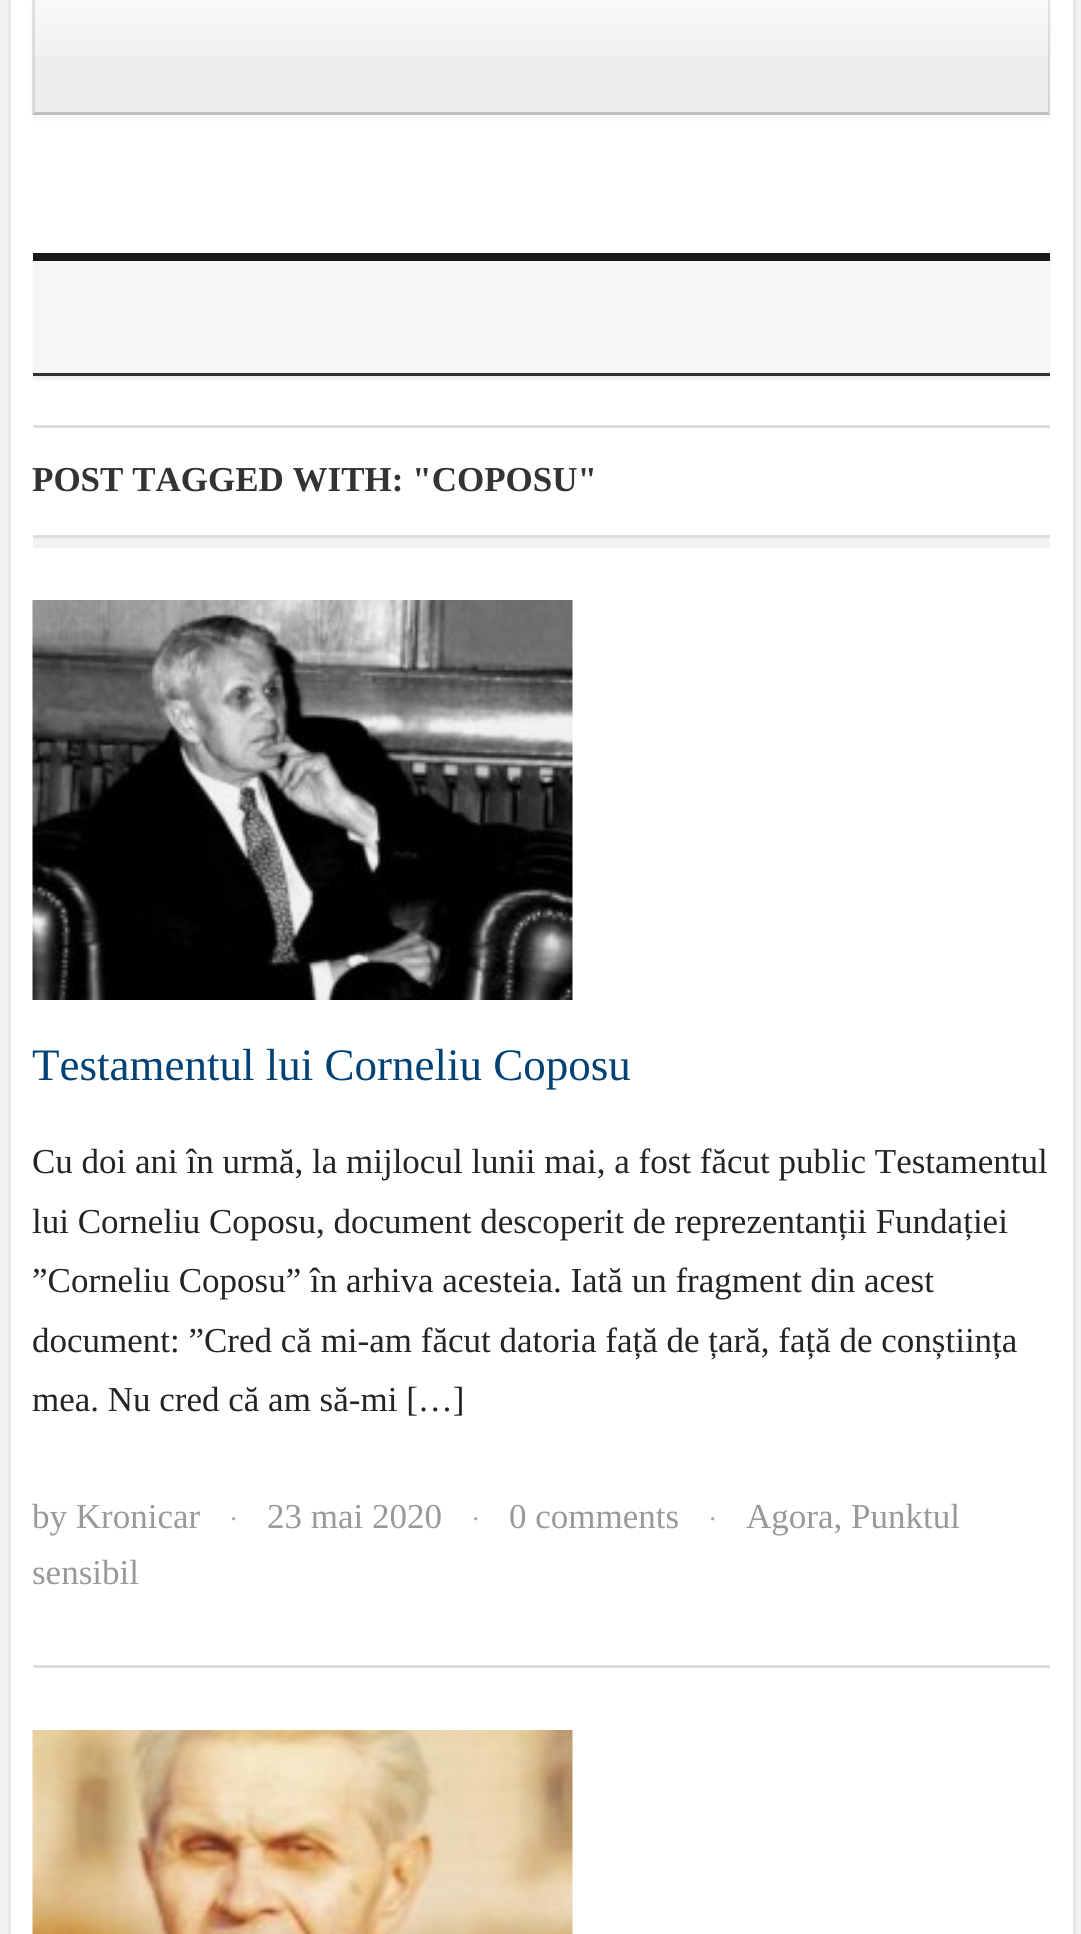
#include <cairo.h>
#include <math.h>
#include <stddef.h>

typedef struct { const char *family; double size; int italic, bold; unsigned color; } style_t;
static cairo_t *ctx;

static void ink(unsigned color) {
    cairo_set_source_rgb(ctx, (color >> 16) / 255.0, (color >> 8 & 255) / 255.0, (color & 255) / 255.0);
}

static void write(double x, double y, const char *s, const style_t *st) {
    cairo_select_font_face(ctx, st->family, st->italic ? CAIRO_FONT_SLANT_ITALIC : CAIRO_FONT_SLANT_NORMAL,
        st->bold ? CAIRO_FONT_WEIGHT_BOLD : CAIRO_FONT_WEIGHT_NORMAL);
    cairo_set_font_size(ctx, st->size);
    ink(st->color);
    cairo_move_to(ctx, x, y);
    cairo_show_text(ctx, s);
}

static void block(double x, double y, double w, double h, unsigned color) {
    ink(color);
    cairo_rectangle(ctx, x, y, w, h);
    cairo_fill(ctx);
}

static void round_path(double x, double y, double w, double h, double r) {
    cairo_new_sub_path(ctx);
    cairo_arc(ctx, x + w - r, y + h - r, r, 0, M_PI / 2);
    cairo_arc(ctx, x + r, y + h - r, r, M_PI / 2, M_PI);
    cairo_arc(ctx, x + r, y + r, r, M_PI, 1.5 * M_PI);
    cairo_arc(ctx, x + w - r, y + r, r, 1.5 * M_PI, 2 * M_PI);
    cairo_close_path(ctx);
}

static void blur_box(double x, double y, double w, double h, double r, double blur, double alpha) {
    cairo_push_group_with_content(ctx, CAIRO_CONTENT_ALPHA);
    cairo_set_operator(ctx, CAIRO_OPERATOR_SOURCE);
    for (int i = 15; i >= -15 && fmin(w, h) + blur * i / 3 > 0; i -= 2) {
        double e = blur * i / 6;
        cairo_set_source_rgba(ctx, 0, 0, 0, alpha * erfc((i - 1) / 8.5) / 2);
        round_path(x - e, y - e, w + 2 * e, h + 2 * e, fmax(0, fmin(r + e + blur * .6, fmin(w, h) / 2 + e)));
        cairo_fill(ctx);
    }
    cairo_pattern_t *soft = cairo_pop_group(ctx);
    cairo_mask(ctx, soft);
    cairo_pattern_destroy(soft);
}

static void paste(const char *path, double x, double y, double w, double h) {
    cairo_surface_t *image = cairo_image_surface_create_from_png(path);
    cairo_save(ctx);
    cairo_set_source_surface(ctx, image, x, y);
    cairo_rectangle(ctx, x, y, w, h);
    cairo_fill(ctx);
    cairo_restore(ctx);
    cairo_surface_destroy(image);
}

static const style_t s1 = {"Liberation Serif", 35, 0, 1, 0x333333};
static const style_t s2 = {"Liberation Serif", 45, 0, 0, 0x004276};
static const style_t s3 = {"Liberation Serif", 35, 0, 0, 0x252324};
static const style_t s4 = {"Liberation Serif", 35, 0, 0, 0x999999};
static const style_t s5 = {"Liberation Serif", 28, 0, 0, 0xa1a9af};

int main(void) {
    cairo_surface_t *surface = cairo_image_surface_create(CAIRO_FORMAT_RGB24, 1081, 1934);
    ctx = cairo_create(surface);
    cairo_font_options_t *options = cairo_font_options_create();
    cairo_font_options_set_hint_metrics(options, CAIRO_HINT_METRICS_OFF);
    cairo_font_options_set_hint_style(options, CAIRO_HINT_STYLE_NONE);
    cairo_set_font_options(ctx, options);
    cairo_set_miter_limit(ctx, 4);
    cairo_pattern_t *gradient;
    ink(0xf2f2f2);
    cairo_paint(ctx);
    block(11, 0, 1062, 1934, 0xffffff);
    block(1073, 0, 3, 1934, 0xe8e6e6);
    block(8, 0, 3, 1934, 0xe8e6e6);
    ink(0x000000);
    blur_box(33, 3, 1017, 115, 0, 2.5, 0.05);
    gradient = cairo_pattern_create_linear(541, 0, 541, 113);
    cairo_pattern_add_color_stop_rgba(gradient, 0, 0.976, 0.976, 0.976, 1);
    cairo_pattern_add_color_stop_rgba(gradient, 0.5, 0.941, 0.945, 0.949, 1);
    cairo_pattern_add_color_stop_rgba(gradient, 0.5, 0.933, 0.933, 0.941, 1);
    cairo_pattern_add_color_stop_rgba(gradient, 1, 0.925, 0.925, 0.933, 1);
    cairo_set_source(ctx, gradient);
    cairo_pattern_destroy(gradient);
    cairo_rectangle(ctx, 33, 0, 1017, 113);
    cairo_fill(ctx);
    gradient = cairo_pattern_create_linear(541, 112, 541, 225);
    cairo_pattern_add_color_stop_rgba(gradient, 0, 0.976, 0.976, 0.976, 1);
    cairo_pattern_add_color_stop_rgba(gradient, 0.5, 0.941, 0.945, 0.949, 1);
    cairo_pattern_add_color_stop_rgba(gradient, 0.5, 0.933, 0.933, 0.941, 1);
    cairo_pattern_add_color_stop_rgba(gradient, 1, 0.925, 0.925, 0.933, 1);
    cairo_set_source(ctx, gradient);
    cairo_pattern_destroy(gradient);
    cairo_rectangle(ctx, 33, 113, 1017, 2);
    cairo_fill(ctx);
    cairo_set_source_rgba(ctx, 0, 0, 0, 0.1);
    cairo_new_path(ctx);
    cairo_move_to(ctx, 1050, 0);
    cairo_line_to(ctx, 1050, 115);
    cairo_line_to(ctx, 1048, 112);
    cairo_line_to(ctx, 1048, 0);
    cairo_close_path(ctx);
    cairo_fill(ctx);
    ink(0xbdbfc0);
    cairo_new_path(ctx);
    cairo_move_to(ctx, 1050, 115);
    cairo_line_to(ctx, 32, 115);
    cairo_line_to(ctx, 35, 112);
    cairo_line_to(ctx, 1048, 112);
    cairo_close_path(ctx);
    cairo_fill(ctx);
    cairo_set_source_rgba(ctx, 0, 0, 0, 0.1);
    cairo_new_path(ctx);
    cairo_move_to(ctx, 32, 115);
    cairo_line_to(ctx, 32, 0);
    cairo_line_to(ctx, 35, 0);
    cairo_line_to(ctx, 35, 112);
    cairo_close_path(ctx);
    cairo_fill(ctx);
    ink(0x000000);
    blur_box(33, 258, 1017, 122, 0, 1, 0.05);
    block(34, 263, 1015, 110, 0xf7f5f5);
    block(33, 261, 1017, 2, 0xf8f7f7);
    block(33, 253, 1017, 8, 0x181b1c);
    block(33, 373, 1017, 3, 0x333333);
    block(33, 538, 1017, 10, 0xf3f3f3);
    block(33, 425, 1017, 3, 0xdddddd);
    block(33, 535, 1017, 3, 0xdddddd);
    write(32, 491, "POST TAGGED WITH: \"COPOSU\"", &s1);
    block(33, 1665, 1017, 3, 0xdddddd);
    paste("pic1.png", 32, 600, 541, 400);
    write(32, 1080, "Testamentul lui Corneliu Coposu", &s2);
    write(32, 1173, "Cu doi ani în urmă, la mijlocul lunii mai, a fost făcut public Testamentul", &s3);
    write(32, 1233, "lui Corneliu Coposu, document descoperit de reprezentanții Fundației", &s3);
    write(32, 1292, "”Corneliu Coposu” în arhiva acesteia. Iată un fragment din acest", &s3);
    write(32, 1352, "document: ”Cred că mi-am făcut datoria față de țară, față de conștiința", &s3);
    write(32, 1411, "mea. Nu cred că am să-mi […]", &s3);
    write(32, 1528, "by Kronicar", &s4);
    write(229, 1528, "·", &s5);
    write(267, 1528, "23 mai 2020", &s4);
    write(471, 1528, "·", &s5);
    write(509, 1528, "0 comments", &s4);
    write(708, 1528, "·", &s5);
    write(746, 1528, "Agora, Punktul", &s4);
    write(32, 1584, "sensibil", &s4);
    paste("pic2.png", 32, 1730, 541, 204);
    cairo_surface_write_to_png(surface, "screenshot.png");
    cairo_font_options_destroy(options);
    cairo_destroy(ctx);
    cairo_surface_destroy(surface);
    return 0;
}
